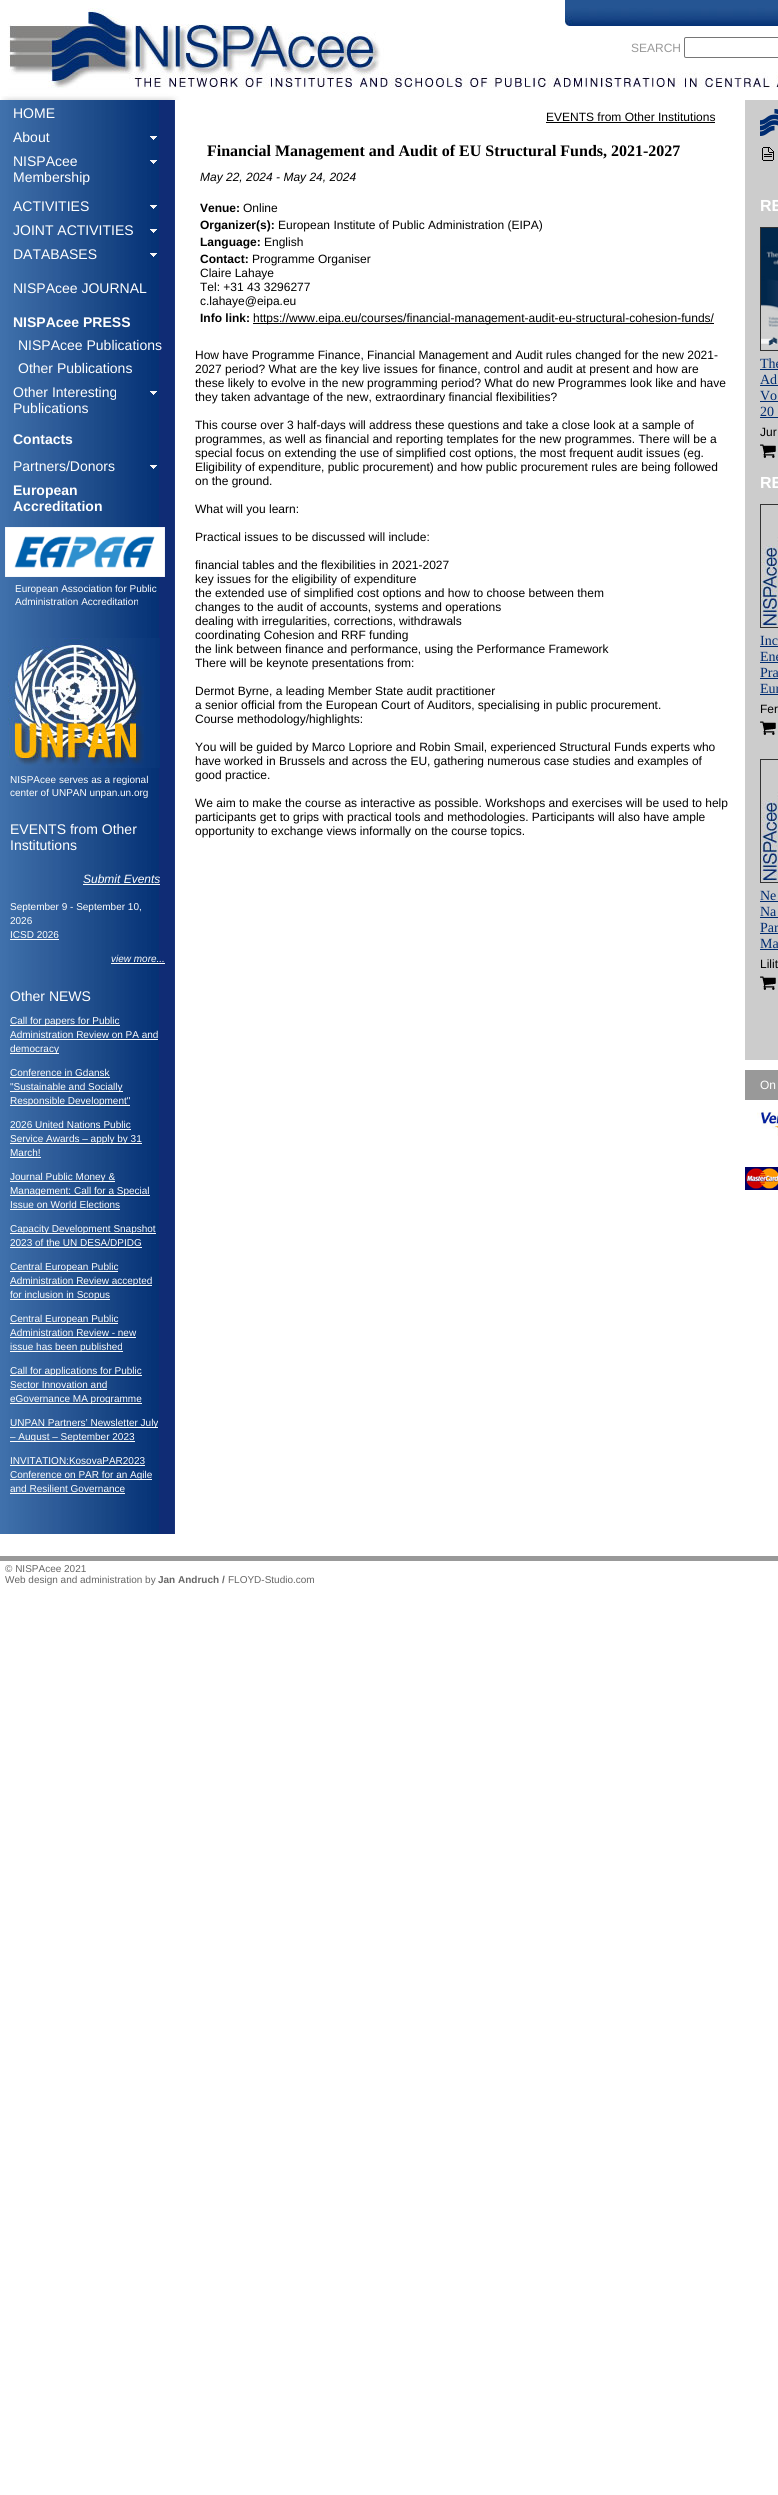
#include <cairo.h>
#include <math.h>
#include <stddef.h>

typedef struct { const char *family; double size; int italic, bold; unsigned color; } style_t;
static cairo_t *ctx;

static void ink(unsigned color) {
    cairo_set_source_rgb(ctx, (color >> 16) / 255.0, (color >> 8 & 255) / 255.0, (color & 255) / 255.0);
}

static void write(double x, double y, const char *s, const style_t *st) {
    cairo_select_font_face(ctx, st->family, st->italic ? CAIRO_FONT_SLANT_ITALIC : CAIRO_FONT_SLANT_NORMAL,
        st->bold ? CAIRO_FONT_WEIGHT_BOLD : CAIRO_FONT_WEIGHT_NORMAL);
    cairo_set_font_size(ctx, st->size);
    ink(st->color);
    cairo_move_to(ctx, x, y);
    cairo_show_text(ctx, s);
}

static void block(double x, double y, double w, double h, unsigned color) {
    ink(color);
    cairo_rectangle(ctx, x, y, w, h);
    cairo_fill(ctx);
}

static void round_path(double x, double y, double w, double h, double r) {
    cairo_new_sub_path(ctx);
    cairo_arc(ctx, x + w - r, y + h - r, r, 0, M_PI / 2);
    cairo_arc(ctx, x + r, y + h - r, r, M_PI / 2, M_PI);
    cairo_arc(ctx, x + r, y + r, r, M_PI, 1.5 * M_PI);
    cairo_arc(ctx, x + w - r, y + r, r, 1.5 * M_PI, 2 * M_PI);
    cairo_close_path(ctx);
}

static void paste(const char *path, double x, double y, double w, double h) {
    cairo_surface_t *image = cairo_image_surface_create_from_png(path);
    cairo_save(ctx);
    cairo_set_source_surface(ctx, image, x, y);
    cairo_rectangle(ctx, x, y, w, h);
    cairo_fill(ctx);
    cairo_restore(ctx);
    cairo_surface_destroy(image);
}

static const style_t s1 = {"Liberation Sans", 12, 0, 0, 0x999999};
static const style_t s2 = {"Liberation Sans", 14, 0, 0, 0xffffff};
static const style_t s3 = {"Liberation Sans", 14, 0, 1, 0xffffff};
static const style_t s4 = {"Liberation Sans", 10, 0, 0, 0xffffff};
static const style_t s5 = {"Liberation Sans", 12, 1, 0, 0xffffff};
static const style_t s6 = {"Liberation Sans", 10, 1, 0, 0xffffff};
static const style_t s7 = {"Liberation Sans", 12, 0, 0, 0x000000};
static const style_t s8 = {"Liberation Serif", 16, 0, 1, 0x000000};
static const style_t s9 = {"Liberation Sans", 12, 1, 0, 0x000000};
static const style_t s10 = {"Liberation Sans", 12, 0, 1, 0x000000};
static const style_t s11 = {"Liberation Sans", 16, 0, 1, 0xffffff};
static const style_t s12 = {"Liberation Serif", 14, 0, 0, 0x002c71};
static const style_t s13 = {"Liberation Sans", 12, 0, 0, 0xffffff};
static const style_t s14 = {"Liberation Sans", 10, 0, 0, 0x666666};
static const style_t s15 = {"Liberation Sans", 10, 0, 1, 0x666666};

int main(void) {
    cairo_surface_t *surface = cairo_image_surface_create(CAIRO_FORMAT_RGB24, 778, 2495);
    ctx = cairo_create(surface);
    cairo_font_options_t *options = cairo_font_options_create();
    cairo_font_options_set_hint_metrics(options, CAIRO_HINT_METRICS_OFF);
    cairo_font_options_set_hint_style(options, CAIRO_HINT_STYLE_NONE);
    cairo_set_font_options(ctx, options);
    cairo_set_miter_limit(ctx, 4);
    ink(0xffffff);
    cairo_paint(ctx);
    paste("pic1.png", 1, 8, 777, 92);
    paste("pic2.png", 565, 0, 213, 26);
    write(631, 52, "SEARCH", &s1);
    round_path(684.5, 37.5, 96, 20, 1.5);
    ink(0x767676);
    cairo_set_line_width(ctx, 1);
    cairo_stroke(ctx);
    paste("pic3.png", 0, 100, 185, 1446);
    write(13, 118, "HOME", &s2);
    write(13, 142, "About", &s2);
    paste("pic4.png", 150, 136, 7, 4);
    write(13, 166, "NISPAcee", &s2);
    paste("pic4.png", 150, 160, 7, 4);
    write(13, 182, "Membership", &s2);
    write(13, 211, "ACTIVITIES", &s2);
    paste("pic4.png", 150, 205, 7, 4);
    write(13, 235, "JOINT ACTIVITIES", &s2);
    paste("pic4.png", 150, 229, 7, 4);
    write(13, 259, "DATABASES", &s2);
    paste("pic4.png", 150, 253, 7, 4);
    write(13, 293, "NISPAcee JOURNAL", &s2);
    write(13, 327, "NISPAcee PRESS", &s3);
    write(18, 350, "NISPAcee Publications", &s2);
    write(18, 373, "Other Publications", &s2);
    write(13, 397, "Other Interesting", &s2);
    paste("pic4.png", 150, 391, 7, 4);
    write(13, 413, "Publications", &s2);
    write(13, 444, "Contacts", &s3);
    write(13, 471, "Partners/Donors", &s2);
    paste("pic4.png", 150, 465, 7, 4);
    write(13, 495, "European", &s3);
    write(13, 511, "Accreditation", &s3);
    paste("pic5.png", 5, 527, 160, 50);
    write(15, 592, "European Association for Public", &s4);
    write(15, 605, "Administration Accreditation", &s4);
    paste("pic6.png", 8, 638, 152, 130);
    write(10, 783, "NISPAcee serves as a regional", &s4);
    write(10, 796, "center of UNPAN unpan.un.org", &s4);
    write(10, 834, "EVENTS from Other", &s2);
    write(10, 850, "Institutions", &s2);
    write(83, 883, "Submit Events", &s5);
    block(83, 884, 77, 1, 0xffffff);
    write(10, 910, "September 9 - September 10,", &s4);
    write(10, 924, "2026", &s4);
    write(10, 938, "ICSD 2026", &s4);
    block(10, 939, 49, 1, 0xffffff);
    write(111, 962, "view more...", &s6);
    block(111, 963, 54, 1, 0xffffff);
    write(10, 1001, "Other NEWS", &s2);
    block(10, 1025, 110, 1, 0xffffff);
    write(10, 1024, "Call for papers for Public", &s4);
    write(10, 1038, "Administration Review on PA and", &s4);
    block(10, 1039, 148, 1, 0xffffff);
    block(10, 1053, 49, 1, 0xffffff);
    write(10, 1052, "democracy", &s4);
    write(10, 1076, "Conference in Gdansk", &s4);
    block(10, 1077, 100, 1, 0xffffff);
    block(10, 1091, 113, 1, 0xffffff);
    write(10, 1090, "\"Sustainable and Socially", &s4);
    block(10, 1105, 120, 1, 0xffffff);
    write(10, 1104, "Responsible Development\"", &s4);
    write(10, 1128, "2026 United Nations Public", &s4);
    block(10, 1129, 121, 1, 0xffffff);
    block(10, 1143, 132, 1, 0xffffff);
    write(10, 1142, "Service Awards – apply by 31", &s4);
    write(10, 1156, "March!", &s4);
    block(10, 1157, 31, 1, 0xffffff);
    block(10, 1181, 105, 1, 0xffffff);
    write(10, 1180, "Journal Public Money &", &s4);
    block(10, 1195, 140, 1, 0xffffff);
    write(10, 1194, "Management: Call for a Special", &s4);
    write(10, 1208, "Issue on World Elections", &s4);
    block(10, 1209, 110, 1, 0xffffff);
    block(10, 1233, 146, 1, 0xffffff);
    write(10, 1232, "Capacity Development Snapshot", &s4);
    write(10, 1246, "2023 of the UN DESA/DPIDG", &s4);
    block(10, 1247, 132, 1, 0xffffff);
    block(10, 1271, 108, 1, 0xffffff);
    write(10, 1270, "Central European Public", &s4);
    block(10, 1285, 142, 1, 0xffffff);
    write(10, 1284, "Administration Review accepted", &s4);
    block(10, 1299, 100, 1, 0xffffff);
    write(10, 1298, "for inclusion in Scopus", &s4);
    block(10, 1323, 108, 1, 0xffffff);
    write(10, 1322, "Central European Public", &s4);
    write(10, 1336, "Administration Review - new", &s4);
    block(10, 1337, 126, 1, 0xffffff);
    block(10, 1351, 113, 1, 0xffffff);
    write(10, 1350, "issue has been published", &s4);
    block(10, 1375, 132, 1, 0xffffff);
    write(10, 1374, "Call for applications for Public", &s4);
    write(10, 1388, "Sector Innovation and", &s4);
    block(10, 1389, 97, 1, 0xffffff);
    block(10, 1403, 132, 1, 0xffffff);
    write(10, 1402, "eGovernance MA programme", &s4);
    block(10, 1427, 148, 1, 0xffffff);
    write(10, 1426, "UNPAN Partners’ Newsletter July", &s4);
    block(10, 1441, 125, 1, 0xffffff);
    write(10, 1440, "– August – September 2023", &s4);
    write(10, 1464, "INVITATION:KosovaPAR2023", &s4);
    block(10, 1465, 135, 1, 0xffffff);
    block(10, 1479, 142, 1, 0xffffff);
    write(10, 1478, "Conference on PAR for an Agile", &s4);
    write(10, 1492, "and Resilient Governance", &s4);
    block(10, 1493, 115, 1, 0xffffff);
    block(0, 1534, 175, 12, 0xffffff);
    write(546, 121, "EVENTS from Other Institutions", &s7);
    block(546, 122, 169, 1, 0x000000);
    write(207, 156, "Financial Management and Audit of EU Structural Funds, 2021-2027", &s8);
    write(200, 181, "May 22, 2024 - May 24, 2024", &s9);
    write(200, 212, "Venue:", &s10);
    write(243, 212, "Online", &s7);
    write(200, 229, "Organizer(s):", &s10);
    write(278, 229, "European Institute of Public Administration (EIPA)", &s7);
    write(200, 246, "Language:", &s10);
    write(264, 246, "English", &s7);
    write(200, 263, "Contact:", &s10);
    write(252, 263, "Programme Organiser", &s7);
    write(200, 277, "Claire Lahaye", &s7);
    write(200, 291, "Tel: +31 43 3296277", &s7);
    write(200, 305, "c.lahaye@eipa.eu", &s7);
    write(200, 322, "Info link:", &s10);
    block(253, 323, 461, 1, 0x000000);
    write(253, 322, "https://www.eipa.eu/courses/financial-management-audit-eu-structural-cohesion-funds/", &s7);
    write(195, 359, "How have Programme Finance, Financial Management and Audit rules changed for the new 2021-", &s7);
    write(195, 373, "2027 period? What are the key live issues for finance, control and audit at present and how are", &s7);
    write(195, 387, "these likely to evolve in the new programming period? What do new Programmes look like and have", &s7);
    write(195, 401, "they taken advantage of the new, extraordinary financial flexibilities?", &s7);
    write(195, 429, "This course over 3 half-days will address these questions and take a close look at a sample of", &s7);
    write(195, 443, "programmes, as well as financial and reporting templates for the new programmes. There will be a", &s7);
    write(195, 457, "special focus on extending the use of simplified cost options, the most frequent audit issues (eg.", &s7);
    write(195, 471, "Eligibility of expenditure, public procurement) and how public procurement rules are being followed", &s7);
    write(195, 485, "on the ground.", &s7);
    write(195, 513, "What will you learn:", &s7);
    write(195, 541, "Practical issues to be discussed will include:", &s7);
    write(195, 569, "financial tables and the flexibilities in 2021-2027", &s7);
    write(195, 583, "key issues for the eligibility of expenditure", &s7);
    write(195, 597, "the extended use of simplified cost options and how to choose between them", &s7);
    write(195, 611, "changes to the audit of accounts, systems and operations", &s7);
    write(195, 625, "dealing with irregularities, corrections, withdrawals", &s7);
    write(195, 639, "coordinating Cohesion and RRF funding", &s7);
    write(195, 653, "the link between finance and performance, using the Performance Framework", &s7);
    write(195, 667, "There will be keynote presentations from:", &s7);
    write(195, 695, "Dermot Byrne, a leading Member State audit practitioner", &s7);
    write(195, 709, "a senior official from the European Court of Auditors, specialising in public procurement.", &s7);
    write(195, 723, "Course methodology/highlights:", &s7);
    write(195, 751, "You will be guided by Marco Lopriore and Robin Smail, experienced Structural Funds experts who", &s7);
    write(195, 765, "have worked in Brussels and across the EU, gathering numerous case studies and examples of", &s7);
    write(195, 779, "good practice.", &s7);
    write(195, 807, "We aim to make the course as interactive as possible. Workshops and exercises will be used to help", &s7);
    write(195, 821, "participants get to grips with practical tools and methodologies. Participants will also have ample", &s7);
    write(195, 835, "opportunity to exchange views informally on the course topics.", &s7);
    block(745, 100, 33, 960, 0xcccccc);
    paste("pic7.png", 760, 109, 18, 27);
    paste("pic8.png", 762, 147, 12, 14);
    write(760, 211, "RE", &s11);
    cairo_rectangle(ctx, 760.5, 227.5, 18, 123);
    ink(0x333333);
    cairo_stroke(ctx);
    paste("pic9.png", 761, 228, 17, 121);
    write(760, 368, "The", &s12);
    block(760, 369, 18, 1, 0x002c71);
    write(760, 384, "Ad", &s12);
    block(760, 385, 18, 1, 0x002c71);
    write(760, 400, "Vo", &s12);
    block(760, 401, 18, 1, 0x002c71);
    write(760, 416, "20", &s12);
    block(760, 417, 18, 1, 0x002c71);
    write(760, 436, "Jur", &s7);
    paste("pic10.png", 760, 444, 16, 14);
    write(760, 488, "RE", &s11);
    cairo_rectangle(ctx, 760.5, 504.5, 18, 123);
    ink(0x333333);
    cairo_stroke(ctx);
    paste("pic11.png", 761, 537, 17, 88);
    write(760, 645, "Inc", &s12);
    block(760, 646, 18, 1, 0x002c71);
    write(760, 661, "Ene", &s12);
    block(760, 662, 18, 1, 0x002c71);
    write(760, 677, "Pra", &s12);
    block(760, 678, 18, 1, 0x002c71);
    write(760, 693, "Eur", &s12);
    block(760, 694, 18, 1, 0x002c71);
    write(760, 713, "Fer", &s7);
    paste("pic10.png", 760, 721, 16, 14);
    cairo_rectangle(ctx, 760.5, 759.5, 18, 123);
    ink(0x333333);
    cairo_stroke(ctx);
    paste("pic11.png", 761, 792, 17, 88);
    write(760, 900, "Ne", &s12);
    block(760, 901, 18, 1, 0x002c71);
    write(760, 916, "Na", &s12);
    block(760, 917, 18, 1, 0x002c71);
    write(760, 932, "Par", &s12);
    block(760, 933, 18, 1, 0x002c71);
    write(760, 948, "Ma", &s12);
    block(760, 949, 18, 1, 0x002c71);
    write(760, 968, "Lilit", &s7);
    paste("pic10.png", 760, 976, 16, 14);
    block(745, 1070, 33, 30, 0x999999);
    write(760, 1089, "On", &s13);
    paste("pic12.png", 757, 1110, 21, 26);
    paste("pic13.png", 745, 1167, 33, 23);
    block(0, 1556, 778, 5, 0x999999);
    write(5, 1572, "© NISPAcee 2021", &s14);
    write(5, 1583, "Web design and administration by", &s14);
    write(158, 1583, "Jan Andruch /", &s15);
    write(228, 1583, "FLOYD-Studio.com", &s14);
    cairo_surface_write_to_png(surface, "screenshot.png");
    cairo_font_options_destroy(options);
    cairo_destroy(ctx);
    cairo_surface_destroy(surface);
    return 0;
}
